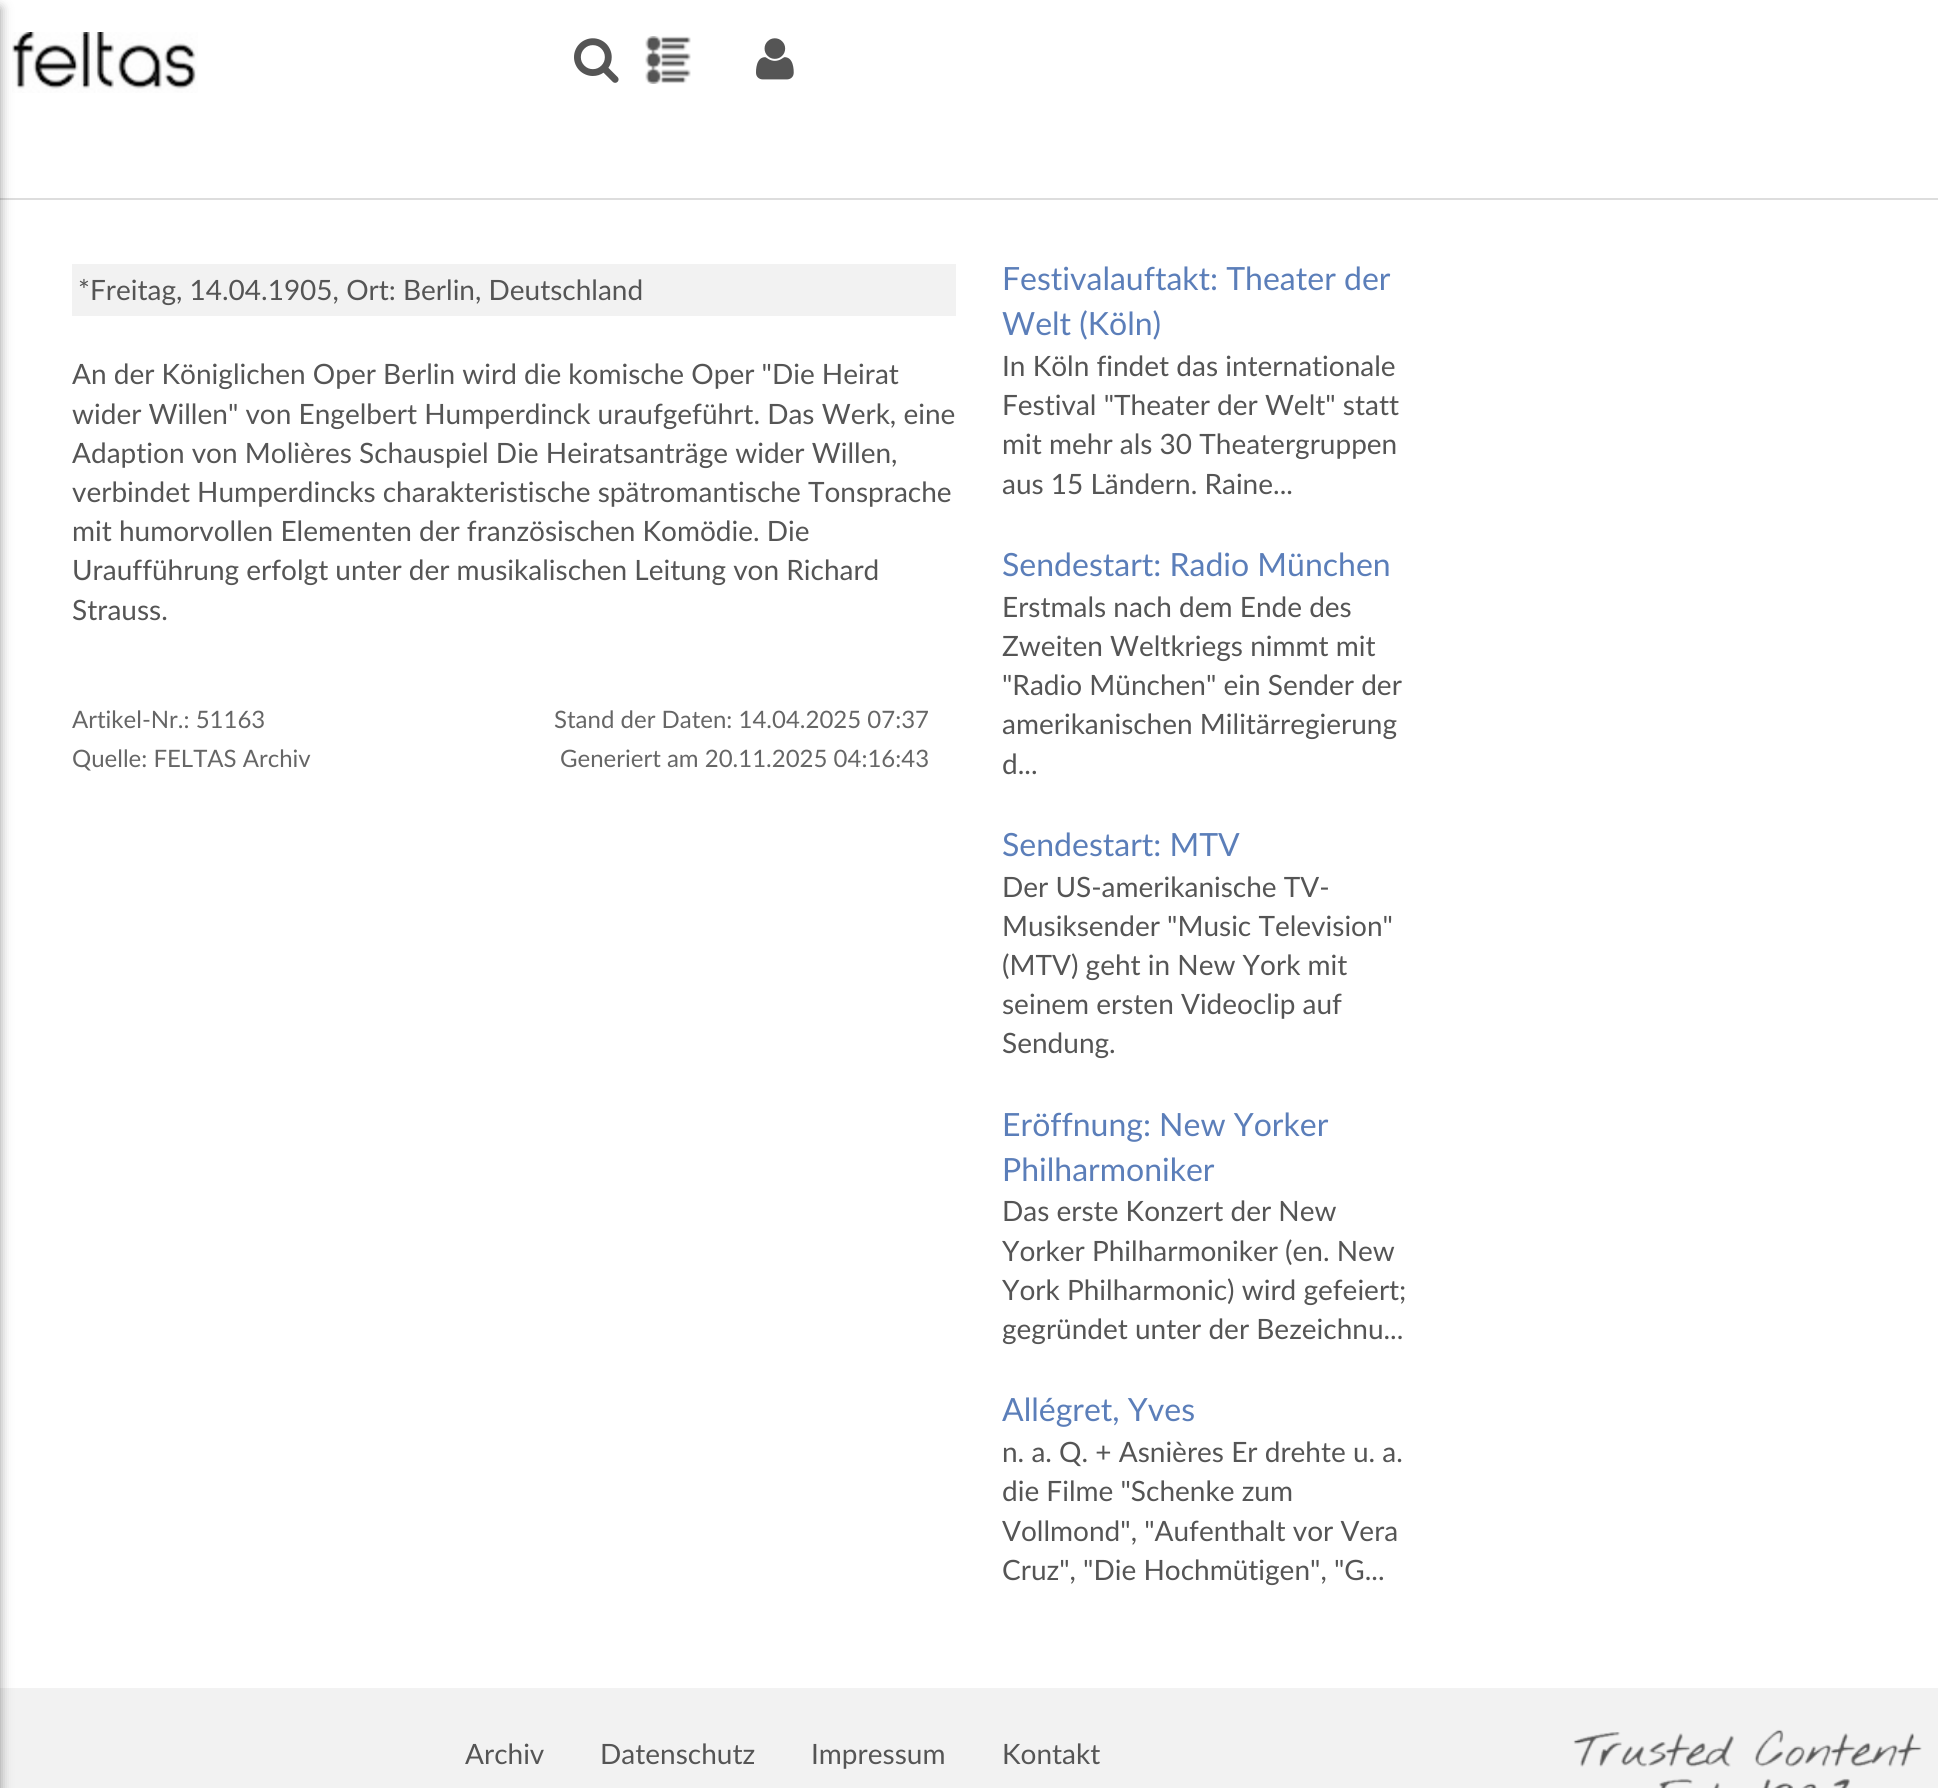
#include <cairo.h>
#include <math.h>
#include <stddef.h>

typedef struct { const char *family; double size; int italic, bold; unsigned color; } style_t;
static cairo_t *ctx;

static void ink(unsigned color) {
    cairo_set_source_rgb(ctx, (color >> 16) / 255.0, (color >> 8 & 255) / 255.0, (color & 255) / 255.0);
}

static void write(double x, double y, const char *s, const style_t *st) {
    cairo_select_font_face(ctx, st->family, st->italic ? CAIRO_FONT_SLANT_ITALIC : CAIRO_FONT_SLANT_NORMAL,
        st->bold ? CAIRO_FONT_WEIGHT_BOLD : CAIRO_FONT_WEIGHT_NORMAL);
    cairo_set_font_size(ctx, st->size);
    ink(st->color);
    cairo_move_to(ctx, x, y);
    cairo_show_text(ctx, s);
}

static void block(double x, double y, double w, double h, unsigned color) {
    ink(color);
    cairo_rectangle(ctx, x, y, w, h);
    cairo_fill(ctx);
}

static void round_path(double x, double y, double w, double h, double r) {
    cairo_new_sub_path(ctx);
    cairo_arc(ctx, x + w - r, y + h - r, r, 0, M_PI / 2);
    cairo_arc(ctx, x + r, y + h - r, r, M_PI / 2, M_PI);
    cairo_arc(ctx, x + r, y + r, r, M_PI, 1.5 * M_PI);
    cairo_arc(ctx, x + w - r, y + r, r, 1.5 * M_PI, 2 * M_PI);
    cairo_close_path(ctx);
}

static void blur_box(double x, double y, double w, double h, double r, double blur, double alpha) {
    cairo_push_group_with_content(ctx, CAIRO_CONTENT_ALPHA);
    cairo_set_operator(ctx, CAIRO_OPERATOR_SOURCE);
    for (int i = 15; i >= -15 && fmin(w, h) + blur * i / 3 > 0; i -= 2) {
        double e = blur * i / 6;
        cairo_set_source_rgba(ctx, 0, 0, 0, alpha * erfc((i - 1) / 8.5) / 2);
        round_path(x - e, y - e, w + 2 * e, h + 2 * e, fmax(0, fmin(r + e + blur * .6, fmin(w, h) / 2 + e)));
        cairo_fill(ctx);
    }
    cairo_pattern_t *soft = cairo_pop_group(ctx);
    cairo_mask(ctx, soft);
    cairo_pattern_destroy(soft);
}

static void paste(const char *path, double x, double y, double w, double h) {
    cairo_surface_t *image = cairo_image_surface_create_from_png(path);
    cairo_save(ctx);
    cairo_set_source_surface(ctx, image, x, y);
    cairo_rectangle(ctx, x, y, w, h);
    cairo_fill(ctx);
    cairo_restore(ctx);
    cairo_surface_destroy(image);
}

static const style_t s1 = {"Lato", 28, 0, 0, 0x555555};
static const style_t s2 = {"Lato", 24, 0, 0, 0x666666};
static const style_t s3 = {"Lato", 32, 0, 0, 0x5b7eb9};

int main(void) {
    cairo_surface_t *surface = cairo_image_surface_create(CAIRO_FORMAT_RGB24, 1938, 1788);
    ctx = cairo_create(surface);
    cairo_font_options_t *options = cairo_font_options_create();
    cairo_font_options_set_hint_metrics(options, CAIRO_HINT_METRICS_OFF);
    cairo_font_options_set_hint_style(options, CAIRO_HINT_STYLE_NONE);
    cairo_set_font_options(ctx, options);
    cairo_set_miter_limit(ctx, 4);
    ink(0xffffff);
    cairo_paint(ctx);
    block(0, 198, 1938, 2, 0xdddddd);
    paste("pic1.png", 12, 32, 186, 61);
    block(0, 1688, 1938, 100, 0xf2f2f2);
    ink(0x000000);
    blur_box(-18, 8, 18, 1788, 0, 6, 0.4);
    paste("pic2.png", 574, 38, 45, 45);
    paste("pic3.png", 645, 36, 46, 48);
    paste("pic4.png", 756, 38, 38, 42);
    block(72, 264, 884, 52, 0xf2f2f2);
    write(78, 300, "*Freitag, 14.04.1905, Ort: Berlin, Deutschland", &s1);
    write(72, 384, "An der Königlichen Oper Berlin wird die komische Oper \"Die Heirat", &s1);
    write(72, 424, "wider Willen\" von Engelbert Humperdinck uraufgeführt. Das Werk, eine", &s1);
    write(72, 463, "Adaption von Molières Schauspiel Die Heiratsanträge wider Willen,", &s1);
    write(72, 502, "verbindet Humperdincks charakteristische spätromantische Tonsprache", &s1);
    write(72, 541, "mit humorvollen Elementen der französischen Komödie. Die", &s1);
    write(72, 580, "Uraufführung erfolgt unter der musikalischen Leitung von Richard", &s1);
    write(72, 620, "Strauss.", &s1);
    write(72, 728, "Artikel-Nr.: 51163", &s2);
    write(72, 767, "Quelle: FELTAS Archiv", &s2);
    write(554, 728, "Stand der Daten: 14.04.2025 07:37", &s2);
    write(560, 767, "Generiert am 20.11.2025 04:16:43", &s2);
    write(1002, 290, "Festivalauftakt: Theater der", &s3);
    write(1002, 335, "Welt (Köln)", &s3);
    write(1002, 376, "In Köln findet das internationale", &s1);
    write(1002, 415, "Festival \"Theater der Welt\" statt", &s1);
    write(1002, 454, "mit mehr als 30 Theatergruppen", &s1);
    write(1002, 494, "aus 15 Ländern. Raine...", &s1);
    write(1002, 576, "Sendestart: Radio München", &s3);
    write(1002, 617, "Erstmals nach dem Ende des", &s1);
    write(1002, 656, "Zweiten Weltkriegs nimmt mit", &s1);
    write(1002, 695, "\"Radio München\" ein Sender der", &s1);
    write(1002, 734, "amerikanischen Militärregierung", &s1);
    write(1002, 774, "d...", &s1);
    write(1002, 856, "Sendestart: MTV", &s3);
    write(1002, 897, "Der US-amerikanische TV-", &s1);
    write(1002, 936, "Musiksender \"Music Television\"", &s1);
    write(1002, 975, "(MTV) geht in New York mit", &s1);
    write(1002, 1014, "seinem ersten Videoclip auf", &s1);
    write(1002, 1053, "Sendung.", &s1);
    write(1002, 1136, "Eröffnung: New Yorker", &s3);
    write(1002, 1181, "Philharmoniker", &s3);
    write(1002, 1221, "Das erste Konzert der New", &s1);
    write(1002, 1261, "Yorker Philharmoniker (en. New", &s1);
    write(1002, 1300, "York Philharmonic) wird gefeiert;", &s1);
    write(1002, 1339, "gegründet unter der Bezeichnu...", &s1);
    write(1002, 1421, "Allégret, Yves", &s3);
    write(1002, 1462, "n. a. Q. + Asnières Er drehte u. a.", &s1);
    write(1002, 1501, "die Filme \"Schenke zum", &s1);
    write(1002, 1541, "Vollmond\", \"Aufenthalt vor Vera", &s1);
    write(1002, 1580, "Cruz\", \"Die Hochmütigen\", \"G...", &s1);
    write(465, 1764, "Archiv", &s1);
    write(600, 1764, "Datenschutz", &s1);
    write(811, 1764, "Impressum", &s1);
    write(1002, 1764, "Kontakt", &s1);
    paste("pic5.png", 1573, 1729, 349, 59);
    cairo_surface_write_to_png(surface, "screenshot.png");
    cairo_font_options_destroy(options);
    cairo_destroy(ctx);
    cairo_surface_destroy(surface);
    return 0;
}
